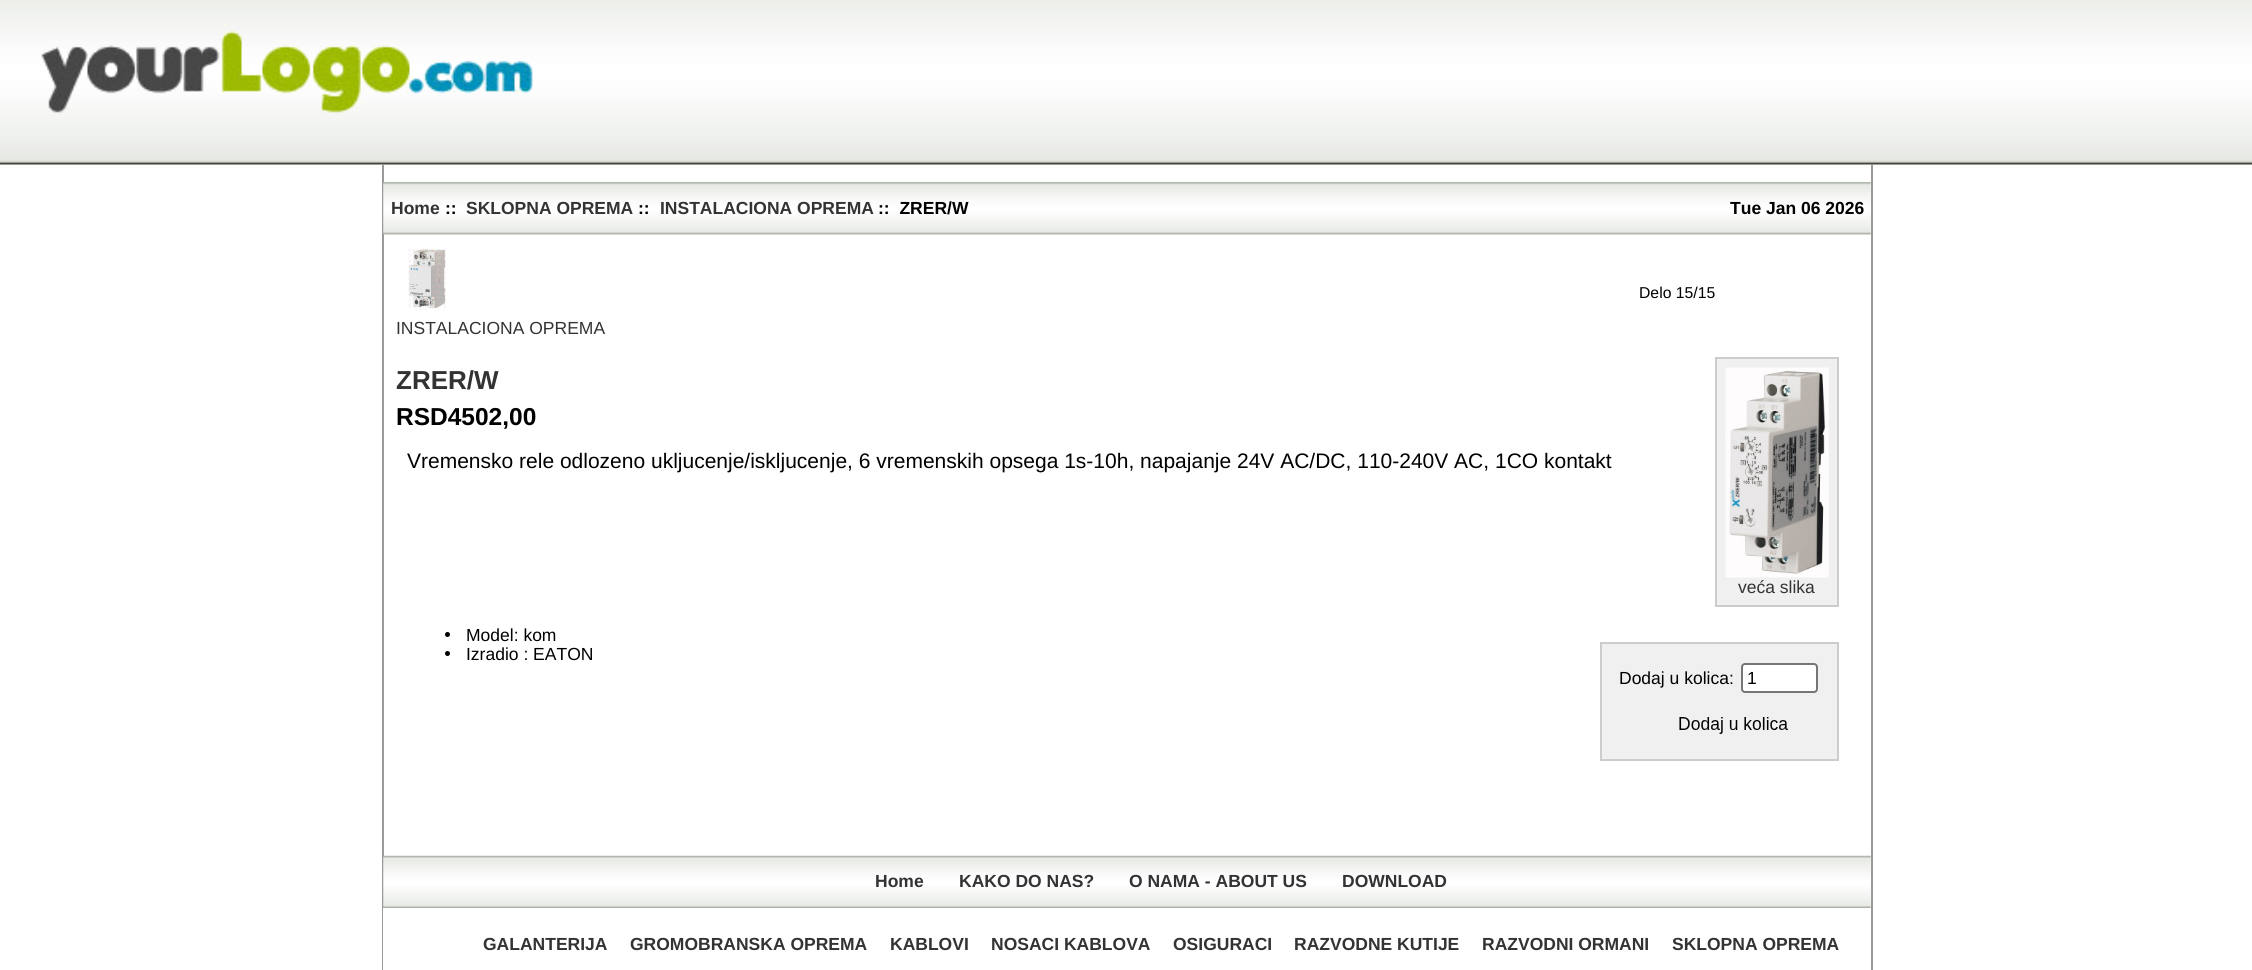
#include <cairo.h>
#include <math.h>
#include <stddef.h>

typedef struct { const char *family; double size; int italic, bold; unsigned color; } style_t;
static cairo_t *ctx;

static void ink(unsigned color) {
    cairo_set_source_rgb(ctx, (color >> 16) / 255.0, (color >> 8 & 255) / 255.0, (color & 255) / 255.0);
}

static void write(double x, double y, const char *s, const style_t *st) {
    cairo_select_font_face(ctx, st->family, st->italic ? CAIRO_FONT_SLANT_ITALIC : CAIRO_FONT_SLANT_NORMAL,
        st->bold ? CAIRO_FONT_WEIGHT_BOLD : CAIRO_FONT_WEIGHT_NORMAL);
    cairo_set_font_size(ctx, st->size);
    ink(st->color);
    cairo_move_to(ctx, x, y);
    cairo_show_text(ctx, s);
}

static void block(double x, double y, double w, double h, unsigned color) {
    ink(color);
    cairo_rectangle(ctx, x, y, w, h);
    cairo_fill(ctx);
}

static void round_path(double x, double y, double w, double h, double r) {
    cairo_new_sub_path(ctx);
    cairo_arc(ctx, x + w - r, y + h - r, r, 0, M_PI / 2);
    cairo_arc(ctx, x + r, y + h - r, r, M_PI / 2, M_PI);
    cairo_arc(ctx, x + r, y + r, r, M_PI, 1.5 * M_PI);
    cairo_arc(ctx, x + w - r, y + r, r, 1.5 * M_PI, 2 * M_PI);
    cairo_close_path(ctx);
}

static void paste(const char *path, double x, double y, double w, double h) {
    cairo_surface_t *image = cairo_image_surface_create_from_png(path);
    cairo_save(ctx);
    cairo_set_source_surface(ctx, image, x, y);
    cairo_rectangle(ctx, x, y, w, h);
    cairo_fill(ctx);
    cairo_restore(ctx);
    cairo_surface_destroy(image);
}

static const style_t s1 = {"Liberation Sans", 17.5, 0, 1, 0x333333};
static const style_t s2 = {"Liberation Sans", 17.5, 0, 1, 0x000000};
static const style_t s3 = {"Liberation Sans", 15.75, 0, 0, 0x000000};
static const style_t s4 = {"Liberation Sans", 17.5, 0, 0, 0x333333};
static const style_t s5 = {"Liberation Sans", 26, 0, 1, 0x333333};
static const style_t s6 = {"Liberation Sans", 24.5, 0, 1, 0x000000};
static const style_t s7 = {"Liberation Sans", 21, 0, 0, 0x000000};
static const style_t s8 = {"Liberation Sans", 17.5, 0, 0, 0x000000};

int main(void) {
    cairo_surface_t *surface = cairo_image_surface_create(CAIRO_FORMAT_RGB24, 2252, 970);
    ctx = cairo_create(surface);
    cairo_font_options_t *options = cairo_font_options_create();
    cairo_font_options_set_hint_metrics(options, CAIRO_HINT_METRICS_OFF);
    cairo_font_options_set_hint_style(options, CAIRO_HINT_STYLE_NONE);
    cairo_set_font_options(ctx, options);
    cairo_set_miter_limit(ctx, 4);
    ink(0xffffff);
    cairo_paint(ctx);
    paste("pic1.png", 0, 0, 2252, 165);
    paste("pic2.png", 41, 24, 492, 89);
    block(1871, 165, 2, 805, 0x9a9a9a);
    block(382, 165, 2, 805, 0x9a9a9a);
    paste("pic3.png", 383, 182, 1488, 53);
    write(391, 214, "Home", &s1);
    write(445, 214, "::", &s2);
    write(466, 214, "SKLOPNA OPREMA", &s1);
    write(638, 214, "::", &s2);
    write(660, 214, "INSTALACIONA OPREMA", &s1);
    write(878, 214, "::  ZRER/W", &s2);
    write(1730, 214, "Tue Jan 06 2026", &s2);
    write(1639, 298, "Delo 15/15", &s3);
    paste("pic4.png", 407, 248, 43, 62);
    write(396, 334, "INSTALACIONA OPREMA", &s4);
    write(396, 389, "ZRER/W", &s5);
    write(396, 425, "RSD4502,00", &s6);
    write(407, 468, "Vremensko rele odlozeno ukljucenje/iskljucenje, 6 vremenskih opsega 1s-10h, napajanje 24V AC/DC, 110-240V AC, 1CO kontakt", &s7);
    ink(0xf0f0f0);
    cairo_rectangle(ctx, 1716, 358, 122, 248);
    cairo_fill_preserve(ctx);
    ink(0xcccccc);
    cairo_stroke(ctx);
    paste("pic5.png", 1725, 367, 104, 211);
    write(1738, 593, "veća slika", &s4);
    ink(0x000000);
    cairo_new_path(ctx);
    cairo_arc(ctx, 447.5, 634.5, 2.5, 0, 2 * M_PI);
    cairo_fill(ctx);
    write(466, 641, "Model: kom", &s8);
    cairo_new_path(ctx);
    cairo_arc(ctx, 447.5, 653.5, 2.5, 0, 2 * M_PI);
    cairo_fill(ctx);
    write(466, 660, "Izradio : EATON", &s8);
    ink(0xf0f0f0);
    cairo_rectangle(ctx, 1601, 643, 237, 117);
    cairo_fill_preserve(ctx);
    ink(0xcccccc);
    cairo_stroke(ctx);
    write(1619, 684, "Dodaj u kolica:", &s8);
    ink(0xffffff);
    round_path(1742, 664, 75, 28, 3);
    cairo_fill_preserve(ctx);
    ink(0x767676);
    cairo_stroke(ctx);
    write(1747, 684, "1", &s8);
    paste("pic6.png", 1679, 717, 109, 17);
    paste("pic7.png", 383, 855, 1488, 53);
    write(875, 887, "Home", &s1);
    write(959, 887, "KAKO DO NAS?", &s1);
    write(1129, 887, "O NAMA - ABOUT US", &s1);
    write(1342, 887, "DOWNLOAD", &s1);
    block(383, 908, 1, 62, 0xffffff);
    write(483, 950, "GALANTERIJA", &s1);
    write(630, 950, "GROMOBRANSKA OPREMA", &s1);
    write(890, 950, "KABLOVI", &s1);
    write(991, 950, "NOSACI KABLOVA", &s1);
    write(1173, 950, "OSIGURACI", &s1);
    write(1294, 950, "RAZVODNE KUTIJE", &s1);
    write(1482, 950, "RAZVODNI ORMANI", &s1);
    write(1672, 950, "SKLOPNA OPREMA", &s1);
    cairo_surface_write_to_png(surface, "screenshot.png");
    cairo_font_options_destroy(options);
    cairo_destroy(ctx);
    cairo_surface_destroy(surface);
    return 0;
}
